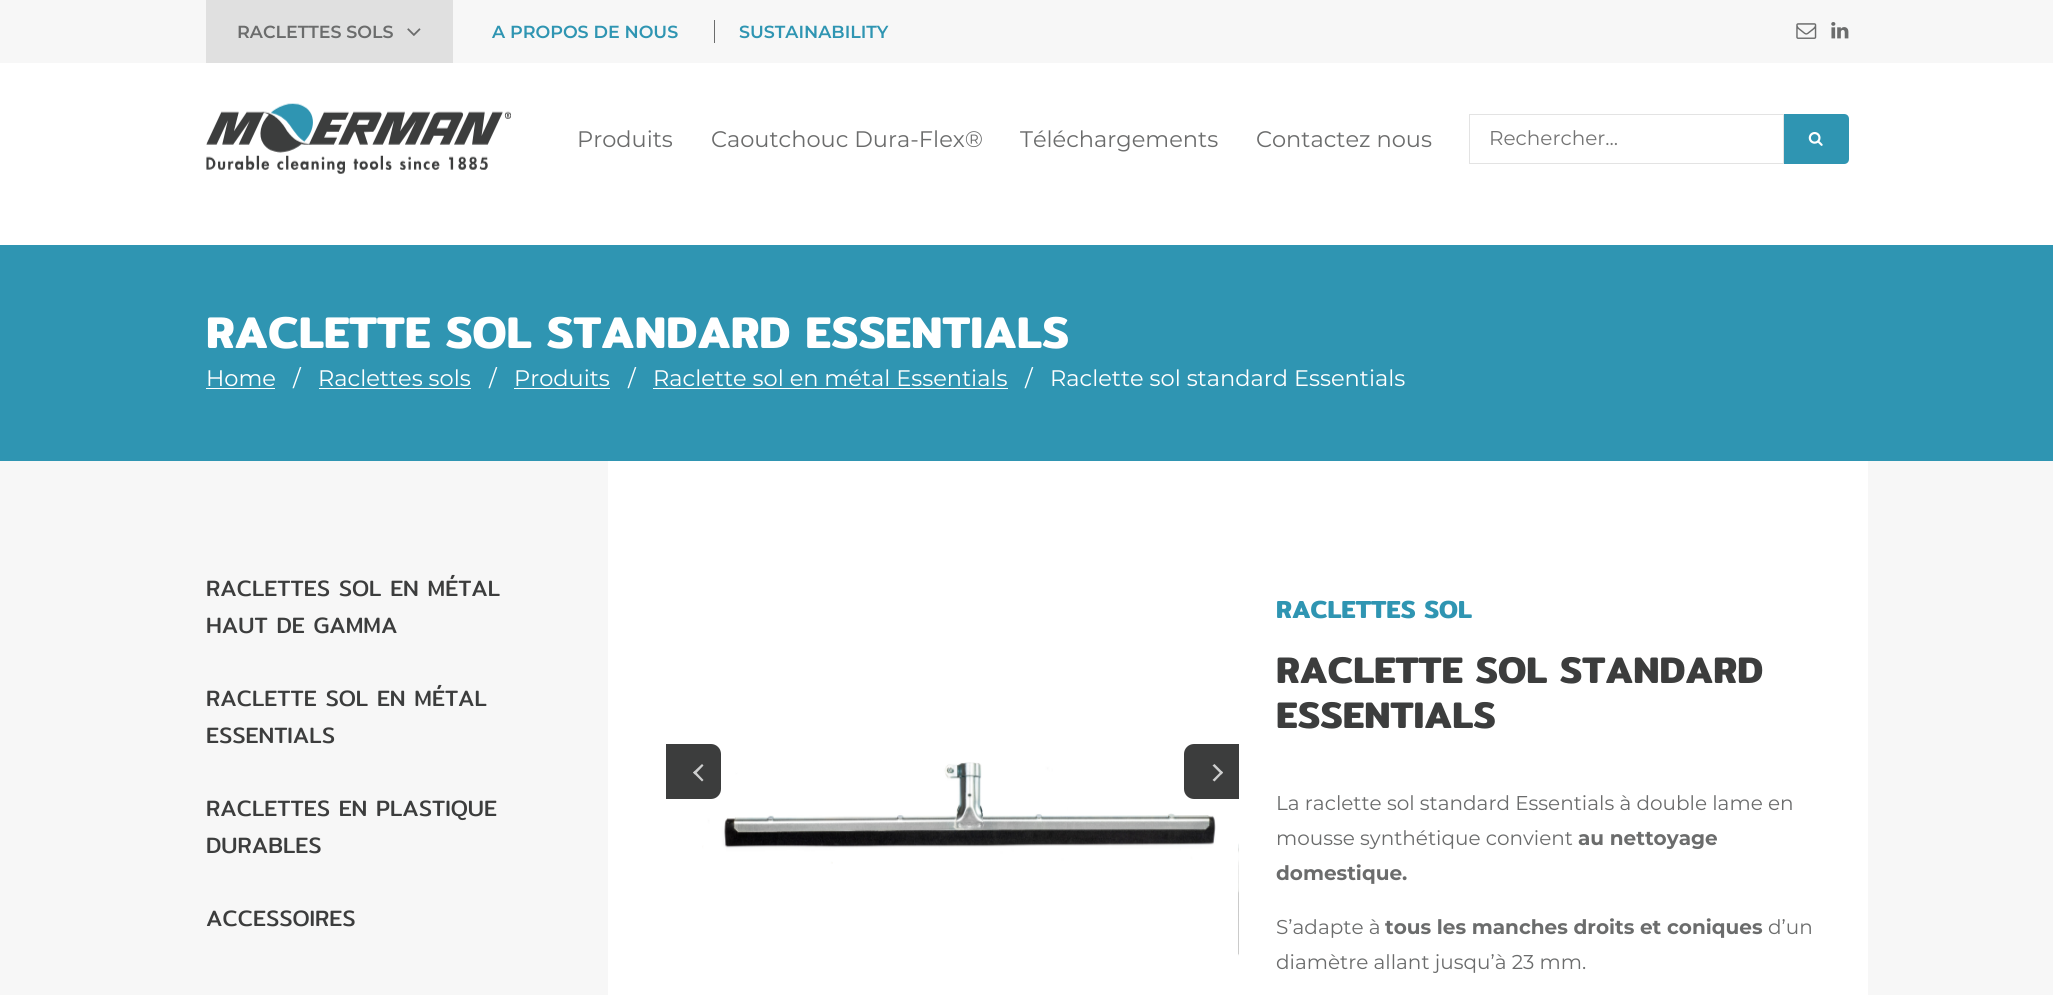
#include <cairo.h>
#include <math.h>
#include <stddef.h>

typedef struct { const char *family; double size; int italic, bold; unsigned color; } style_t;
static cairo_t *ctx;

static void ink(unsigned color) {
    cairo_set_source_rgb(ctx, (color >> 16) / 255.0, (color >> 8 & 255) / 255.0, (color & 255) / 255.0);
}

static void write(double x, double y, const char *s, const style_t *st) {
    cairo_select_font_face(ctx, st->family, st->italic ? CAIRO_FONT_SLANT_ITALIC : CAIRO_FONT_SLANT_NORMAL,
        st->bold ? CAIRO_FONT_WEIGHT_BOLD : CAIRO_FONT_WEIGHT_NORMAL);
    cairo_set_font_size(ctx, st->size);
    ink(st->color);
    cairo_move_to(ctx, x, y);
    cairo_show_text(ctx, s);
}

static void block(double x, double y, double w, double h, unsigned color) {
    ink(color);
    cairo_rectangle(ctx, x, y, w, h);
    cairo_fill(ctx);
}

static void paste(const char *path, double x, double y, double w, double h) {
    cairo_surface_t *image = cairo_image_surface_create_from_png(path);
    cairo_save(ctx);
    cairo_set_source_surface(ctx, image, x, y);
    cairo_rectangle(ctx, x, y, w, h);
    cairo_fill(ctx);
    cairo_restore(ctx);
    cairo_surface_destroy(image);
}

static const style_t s1 = {"Montserrat SemiBold", 17.5, 0, 0, 0x6b6c6c};
static const style_t s2 = {"Montserrat SemiBold", 17.5, 0, 0, 0x2f95b2};
static const style_t s3 = {"Montserrat", 22.5, 0, 0, 0x6b6c6c};
static const style_t s4 = {"Montserrat", 20, 0, 0, 0x757575};
static const style_t s5 = {"Mitr SemiBold", 45, 0, 0, 0xffffff};
static const style_t s6 = {"Montserrat", 22.5, 0, 0, 0xffffff};
static const style_t s7 = {"Mitr", 22.5, 0, 0, 0x3c3d3d};
static const style_t s8 = {"Mitr SemiBold", 25, 0, 0, 0x2f95b2};
static const style_t s9 = {"Mitr SemiBold", 37.5, 0, 0, 0x3c3d3d};
static const style_t s10 = {"Montserrat", 20, 0, 0, 0x6b6c6c};
static const style_t s11 = {"Montserrat", 20, 0, 1, 0x6b6c6c};

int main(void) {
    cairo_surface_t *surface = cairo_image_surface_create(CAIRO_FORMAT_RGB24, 2053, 995);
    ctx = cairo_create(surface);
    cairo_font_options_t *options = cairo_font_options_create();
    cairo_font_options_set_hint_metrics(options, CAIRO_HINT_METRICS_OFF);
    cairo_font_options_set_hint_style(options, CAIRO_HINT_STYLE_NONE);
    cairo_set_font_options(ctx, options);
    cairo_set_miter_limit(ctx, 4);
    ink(0xffffff);
    cairo_paint(ctx);
    block(0, 0, 2053, 63, 0xf7f7f7);
    block(206, 0, 247, 63, 0xe0e0e0);
    write(237, 38, "RACLETTES SOLS", &s1);
    paste("pic1.png", 407, 28, 14, 8);
    write(492, 38, "A PROPOS DE NOUS", &s2);
    write(739, 38, "SUSTAINABILITY", &s2);
    block(714, 20, 1, 23, 0x6b6c6c);
    paste("pic2.png", 1796, 23, 21, 16);
    paste("pic3.png", 1831, 22, 18, 17);
    paste("pic4.png", 206, 103, 305, 71);
    write(577, 147, "Produits", &s3);
    write(711, 147, "Caoutchouc Dura-Flex®", &s3);
    write(1020, 147, "Téléchargements", &s3);
    write(1256, 147, "Contactez nous", &s3);
    cairo_rectangle(ctx, 1469.5, 114.5, 314, 49);
    ink(0xe3e3e3);
    cairo_set_line_width(ctx, 1);
    cairo_stroke(ctx);
    write(1489, 145, "Rechercher...", &s4);
    ink(0x2f95b2);
    cairo_new_path(ctx);
    cairo_move_to(ctx, 1784, 114);
    cairo_line_to(ctx, 1844, 114);
    cairo_curve_to(ctx, 1847, 114, 1849, 116, 1849, 119);
    cairo_line_to(ctx, 1849, 159);
    cairo_curve_to(ctx, 1849, 162, 1847, 164, 1844, 164);
    cairo_line_to(ctx, 1784, 164);
    cairo_close_path(ctx);
    cairo_fill(ctx);
    paste("pic5.png", 1808, 132, 15, 14);
    block(0, 245, 2053, 216, 0x2f95b2);
    write(206, 348, "RACLETTE SOL STANDARD ESSENTIALS", &s5);
    write(206, 386, "Home", &s6);
    block(206, 388, 69, 1, 0xffffff);
    write(293, 386, "/", &s6);
    write(318, 386, "Raclettes sols", &s6);
    block(319, 388, 152, 1, 0xffffff);
    write(489, 386, "/", &s6);
    write(514, 386, "Produits", &s6);
    block(514, 388, 96, 1, 0xffffff);
    write(628, 386, "/", &s6);
    write(653, 386, "Raclette sol en métal Essentials", &s6);
    block(653, 388, 355, 1, 0xffffff);
    write(1025, 386, "/", &s6);
    write(1050, 386, "Raclette sol standard Essentials", &s6);
    block(0, 461, 2053, 534, 0xf7f7f7);
    write(206, 596, "RACLETTES SOL EN MÉTAL", &s7);
    write(206, 633, "HAUT DE GAMMA", &s7);
    write(206, 706, "RACLETTE SOL EN MÉTAL", &s7);
    write(206, 743, "ESSENTIALS", &s7);
    write(206, 816, "RACLETTES EN PLASTIQUE", &s7);
    write(206, 853, "DURABLES", &s7);
    write(206, 926, "ACCESSOIRES", &s7);
    block(608, 461, 1260, 534, 0xffffff);
    paste("pic6.png", 702, 762, 514, 102);
    ink(0x3c3d3d);
    cairo_new_path(ctx);
    cairo_move_to(ctx, 666, 744);
    cairo_line_to(ctx, 711, 744);
    cairo_curve_to(ctx, 716.5, 744, 721, 748.5, 721, 754);
    cairo_line_to(ctx, 721, 789);
    cairo_curve_to(ctx, 721, 794.5, 716.5, 799, 711, 799);
    cairo_line_to(ctx, 666, 799);
    cairo_close_path(ctx);
    cairo_fill(ctx);
    ink(0xcecfcf);
    cairo_new_path(ctx);
    cairo_move_to(ctx, 702, 781.5);
    cairo_line_to(ctx, 693, 772.5);
    cairo_line_to(ctx, 695, 771);
    cairo_line_to(ctx, 703.5, 780);
    cairo_close_path(ctx);
    cairo_fill(ctx);
    cairo_new_path(ctx);
    cairo_move_to(ctx, 695, 774.5);
    cairo_line_to(ctx, 693, 772.5);
    cairo_line_to(ctx, 702, 764);
    cairo_line_to(ctx, 703.5, 765.5);
    cairo_close_path(ctx);
    cairo_fill(ctx);
    ink(0x3c3d3d);
    cairo_new_path(ctx);
    cairo_move_to(ctx, 1194, 744);
    cairo_line_to(ctx, 1239, 744);
    cairo_line_to(ctx, 1239, 799);
    cairo_line_to(ctx, 1194, 799);
    cairo_curve_to(ctx, 1188.5, 799, 1184, 794.5, 1184, 789);
    cairo_line_to(ctx, 1184, 754);
    cairo_curve_to(ctx, 1184, 748.5, 1188.5, 744, 1194, 744);
    cairo_close_path(ctx);
    cairo_fill(ctx);
    ink(0xcecfcf);
    cairo_new_path(ctx);
    cairo_move_to(ctx, 1214.5, 764);
    cairo_line_to(ctx, 1223, 772.5);
    cairo_line_to(ctx, 1221.5, 774.5);
    cairo_line_to(ctx, 1212.5, 765.5);
    cairo_close_path(ctx);
    cairo_fill(ctx);
    cairo_new_path(ctx);
    cairo_move_to(ctx, 1221.5, 771);
    cairo_line_to(ctx, 1223, 772.5);
    cairo_line_to(ctx, 1214.5, 781.5);
    cairo_line_to(ctx, 1212.5, 780);
    cairo_close_path(ctx);
    cairo_fill(ctx);
    paste("pic7.png", 1238, 843, 1, 113);
    write(1276, 618, "RACLETTES SOL", &s8);
    write(1276, 683, "RACLETTE SOL STANDARD", &s9);
    write(1276, 728, "ESSENTIALS", &s9);
    write(1276, 810, "La raclette sol standard Essentials à double lame en", &s10);
    write(1276, 845, "mousse synthétique convient", &s10);
    write(1578, 845, "au nettoyage", &s11);
    write(1276, 880, "domestique.", &s11);
    write(1276, 934, "S’adapte à", &s10);
    write(1385, 934, "tous les manches droits et coniques", &s11);
    write(1768, 934, "d’un", &s10);
    write(1276, 969, "diamètre allant jusqu’à 23 mm.", &s10);
    cairo_surface_write_to_png(surface, "screenshot.png");
    cairo_font_options_destroy(options);
    cairo_destroy(ctx);
    cairo_surface_destroy(surface);
    return 0;
}
